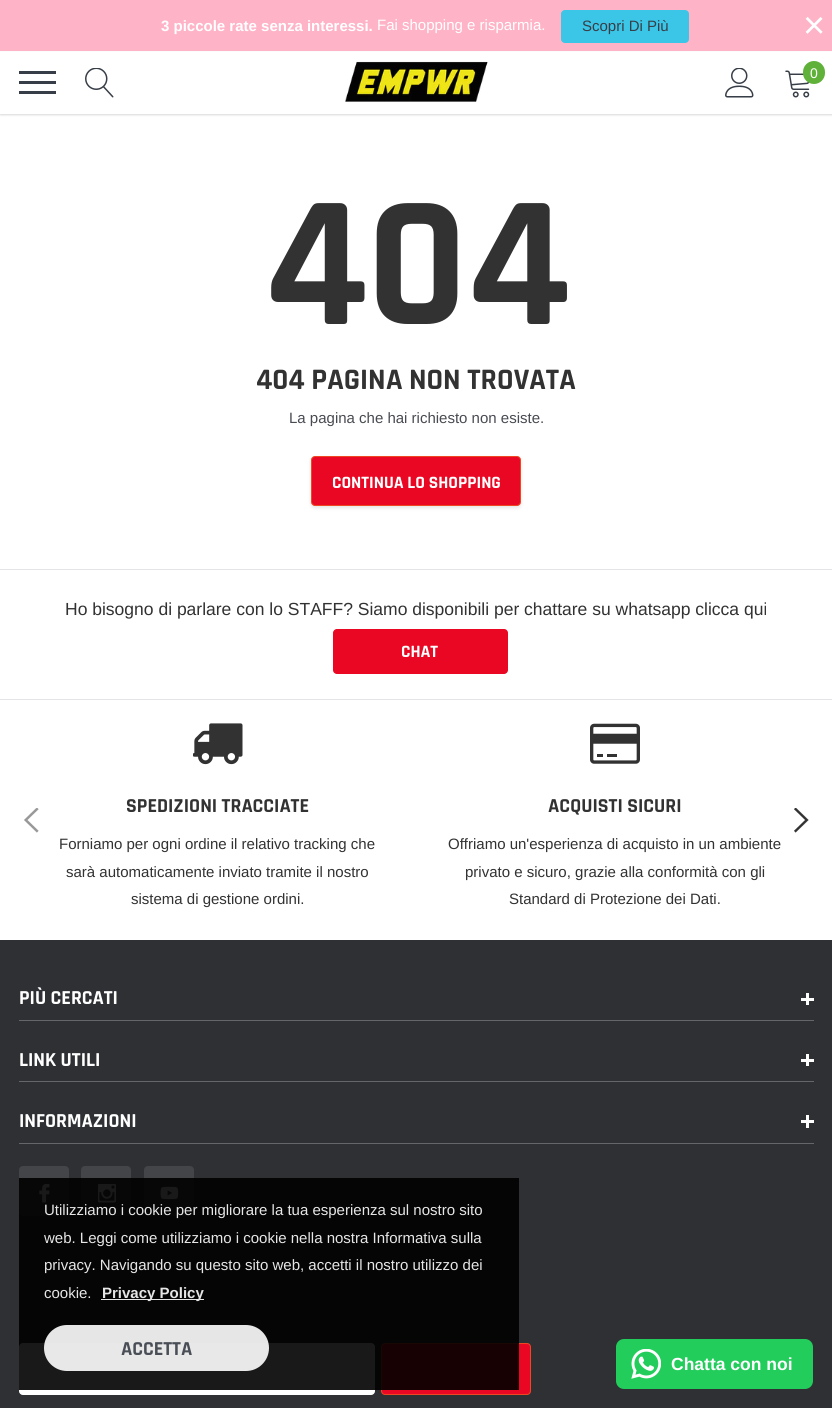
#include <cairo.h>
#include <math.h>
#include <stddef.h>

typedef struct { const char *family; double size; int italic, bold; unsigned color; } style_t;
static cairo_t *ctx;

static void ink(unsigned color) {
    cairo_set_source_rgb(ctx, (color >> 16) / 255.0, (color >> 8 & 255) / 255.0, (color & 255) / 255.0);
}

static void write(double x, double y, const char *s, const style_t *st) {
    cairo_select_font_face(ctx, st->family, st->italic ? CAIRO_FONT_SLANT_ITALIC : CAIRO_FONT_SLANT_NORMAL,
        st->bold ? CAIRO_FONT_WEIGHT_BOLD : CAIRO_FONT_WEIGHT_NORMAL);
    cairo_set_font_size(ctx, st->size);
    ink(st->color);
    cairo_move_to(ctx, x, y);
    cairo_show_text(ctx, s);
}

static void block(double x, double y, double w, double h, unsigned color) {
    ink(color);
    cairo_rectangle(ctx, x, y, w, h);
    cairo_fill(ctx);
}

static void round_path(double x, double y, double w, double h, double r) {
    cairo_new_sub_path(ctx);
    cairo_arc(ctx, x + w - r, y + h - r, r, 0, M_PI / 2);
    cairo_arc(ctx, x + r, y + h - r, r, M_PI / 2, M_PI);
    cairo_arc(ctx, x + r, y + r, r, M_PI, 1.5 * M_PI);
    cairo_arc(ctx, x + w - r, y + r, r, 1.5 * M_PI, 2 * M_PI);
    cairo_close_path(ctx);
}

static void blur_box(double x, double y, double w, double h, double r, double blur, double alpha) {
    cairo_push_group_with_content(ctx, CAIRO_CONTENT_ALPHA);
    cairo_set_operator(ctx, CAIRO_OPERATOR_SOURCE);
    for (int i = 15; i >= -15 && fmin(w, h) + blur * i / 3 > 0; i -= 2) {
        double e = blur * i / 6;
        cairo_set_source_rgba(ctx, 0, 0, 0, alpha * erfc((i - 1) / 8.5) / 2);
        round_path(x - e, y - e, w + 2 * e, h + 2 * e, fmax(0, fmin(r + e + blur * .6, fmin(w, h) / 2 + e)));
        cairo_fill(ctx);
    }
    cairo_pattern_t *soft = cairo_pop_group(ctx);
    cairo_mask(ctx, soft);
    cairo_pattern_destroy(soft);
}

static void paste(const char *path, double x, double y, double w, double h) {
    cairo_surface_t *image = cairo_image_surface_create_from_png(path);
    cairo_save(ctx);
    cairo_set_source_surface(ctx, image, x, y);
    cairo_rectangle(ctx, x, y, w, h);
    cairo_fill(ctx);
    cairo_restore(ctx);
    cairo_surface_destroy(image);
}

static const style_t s1 = {"Arimo", 15, 0, 1, 0xffffff};
static const style_t s2 = {"Arimo", 15, 0, 0, 0xffffff};
static const style_t s3 = {"Arimo", 15, 0, 0, 0x383e47};
static const style_t s4 = {"Arimo", 38, 0, 0, 0xffffff};
static const style_t s5 = {"Arimo", 14, 0, 0, 0xffffff};
static const style_t s6 = {"Rajdhani", 188, 0, 1, 0x323232};
static const style_t s7 = {"Rajdhani", 30, 0, 1, 0x323232};
static const style_t s8 = {"Arimo", 15, 0, 0, 0x484b51};
static const style_t s9 = {"Rajdhani", 17.5, 0, 1, 0xffffff};
static const style_t s10 = {"Arimo", 17.5, 0, 0, 0x323232};
static const style_t s11 = {"Rajdhani", 20, 0, 1, 0x323232};
static const style_t s12 = {"Arimo", 15, 0, 0, 0x323232};
static const style_t s13 = {"Rajdhani", 20, 0, 1, 0xffffff};
static const style_t s14 = {"Arimo", 15, 0, 0, 0xe6e6e6};
static const style_t s15 = {"Arimo", 15, 0, 1, 0xe6e6e6};
static const style_t s16 = {"Rajdhani", 20, 0, 1, 0x4a4f57};
static const style_t s17 = {"Arimo", 17.5, 0, 1, 0xffffff};

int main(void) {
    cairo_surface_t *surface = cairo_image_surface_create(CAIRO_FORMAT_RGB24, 832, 1408);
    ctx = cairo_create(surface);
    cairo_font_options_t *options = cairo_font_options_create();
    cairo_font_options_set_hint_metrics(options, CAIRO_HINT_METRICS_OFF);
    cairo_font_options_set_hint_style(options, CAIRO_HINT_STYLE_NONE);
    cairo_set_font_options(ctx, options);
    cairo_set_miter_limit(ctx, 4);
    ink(0xffffff);
    cairo_paint(ctx);
    block(0, 0, 832, 51, 0xffb3c7);
    write(161, 31, "3 piccole rate senza interessi.", &s1);
    write(377, 30, "Fai shopping e risparmia.", &s2);
    ink(0x3bc6e8);
    round_path(561.5, 10.5, 127, 32, 3.5);
    cairo_fill_preserve(ctx);
    cairo_set_line_width(ctx, 1);
    cairo_stroke(ctx);
    write(582, 31, "Scopri Di Più", &s3);
    write(803, 38, "×", &s4);
    ink(0x000000);
    blur_box(0, 53, 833, 62, 0, 1, 0.15);
    block(0, 52, 832, 62, 0xffffff);
    block(19, 81, 37, 3, 0x383e47);
    block(19, 71, 37, 3, 0x383e47);
    block(19, 91, 37, 3, 0x383e47);
    paste("pic1.png", 85, 68, 29, 30);
    paste("pic2.png", 345, 61, 143, 41);
    paste("pic3.png", 725, 68, 29, 30);
    paste("pic4.png", 785, 70, 25, 28);
    ink(0x5fb139);
    round_path(803, 61, 22, 23, 11);
    cairo_fill(ctx);
    write(810, 78, "0", &s5);
    write(265, 324, "404", &s6);
    write(256, 389, "404 PAGINA NON TROVATA", &s7);
    write(289, 423, "La pagina che hai richiesto non esiste.", &s8);
    ink(0x000000);
    blur_box(311, 458, 210, 50, 4, 2, 0.1);
    ink(0xe90723);
    round_path(311.5, 456.5, 209, 49, 3.5);
    cairo_fill_preserve(ctx);
    ink(0xf04723);
    cairo_stroke(ctx);
    write(332, 488, "CONTINUA LO SHOPPING", &s9);
    block(0, 569, 832, 1, 0xe2e4e8);
    write(65, 615, "Ho bisogno di parlare con lo STAFF? Siamo disponibili per chattare su whatsapp clicca qui", &s10);
    ink(0xe90723);
    round_path(333, 629, 175, 45, 4);
    cairo_fill(ctx);
    write(401, 657, "CHAT", &s9);
    block(0, 699, 832, 1, 0xe2e4e8);
    paste("pic5.png", 24, 808, 15, 25);
    paste("pic6.png", 193, 723, 50, 42);
    write(126, 812, "SPEDIZIONI TRACCIATE", &s11);
    write(59, 849, "Forniamo per ogni ordine il relativo tracking che", &s12);
    write(66, 877, "sarà automaticamente inviato tramite il nostro", &s12);
    write(131, 904, "sistema di gestione ordini.", &s12);
    paste("pic7.png", 590, 723, 50, 41);
    write(548, 812, "ACQUISTI SICURI", &s11);
    write(448, 849, "Offriamo un'esperienza di acquisto in un ambiente", &s12);
    write(465, 877, "privato e sicuro, grazie alla conformità con gli", &s12);
    write(509, 904, "Standard di Protezione dei Dati.", &s12);
    paste("pic8.png", 794, 808, 15, 25);
    block(0, 940, 832, 468, 0x2e3034);
    block(19, 1020, 795, 1, 0x64666a);
    write(19, 1004, "PIÙ CERCATI", &s13);
    block(806, 993, 3, 12, 0xffffff);
    block(801, 998, 13, 3, 0xffffff);
    block(19, 1081, 795, 1, 0x64666a);
    write(19, 1066, "LINK UTILI", &s13);
    block(806, 1054, 3, 12, 0xffffff);
    block(801, 1059, 13, 3, 0xffffff);
    block(19, 1143, 795, 1, 0x64666a);
    write(19, 1127, "INFORMAZIONI", &s13);
    block(806, 1115, 3, 13, 0xffffff);
    block(801, 1120, 13, 3, 0xffffff);
    ink(0x434548);
    round_path(19, 1166, 50, 50, 4);
    cairo_fill(ctx);
    paste("pic9.png", 39, 1184, 11, 19);
    round_path(81, 1166, 50, 50, 4);
    cairo_fill(ctx);
    paste("pic10.png", 98, 1184, 18, 19);
    round_path(144, 1166, 50, 50, 4);
    cairo_fill(ctx);
    paste("pic11.png", 160, 1186, 19, 14);
    ink(0xffffff);
    round_path(19.5, 1343.5, 355, 51, 3.5);
    cairo_fill_preserve(ctx);
    cairo_stroke(ctx);
    ink(0xe90723);
    round_path(381.5, 1343.5, 149, 51, 3.5);
    cairo_fill_preserve(ctx);
    ink(0xf04723);
    cairo_stroke(ctx);
    cairo_set_source_rgba(ctx, 0, 0, 0, 0.9);
    cairo_rectangle(ctx, 19, 1178, 500, 212);
    cairo_fill(ctx);
    write(44, 1215, "Utilizziamo i cookie per migliorare la tua esperienza sul nostro sito", &s14);
    write(44, 1243, "web. Leggi come utilizziamo i cookie nella nostra Informativa sulla", &s14);
    write(44, 1270, "privacy. Navigando su questo sito web, accetti il nostro utilizzo dei", &s14);
    write(44, 1298, "cookie.", &s14);
    block(101, 1299, 103, 1, 0xe6e6e6);
    write(102, 1298, "Privacy Policy", &s15);
    cairo_set_source_rgba(ctx, 1, 1, 1, 0.9);
    round_path(44, 1325, 225, 46, 23);
    cairo_fill(ctx);
    write(121, 1355, "ACCETTA", &s16);
    ink(0x22cd5b);
    round_path(616, 1339, 197, 50, 8);
    cairo_fill(ctx);
    paste("pic12.png", 631, 1349, 30, 30);
    write(671, 1370, "Chatta con noi", &s17);
    cairo_surface_write_to_png(surface, "screenshot.png");
    cairo_font_options_destroy(options);
    cairo_destroy(ctx);
    cairo_surface_destroy(surface);
    return 0;
}
